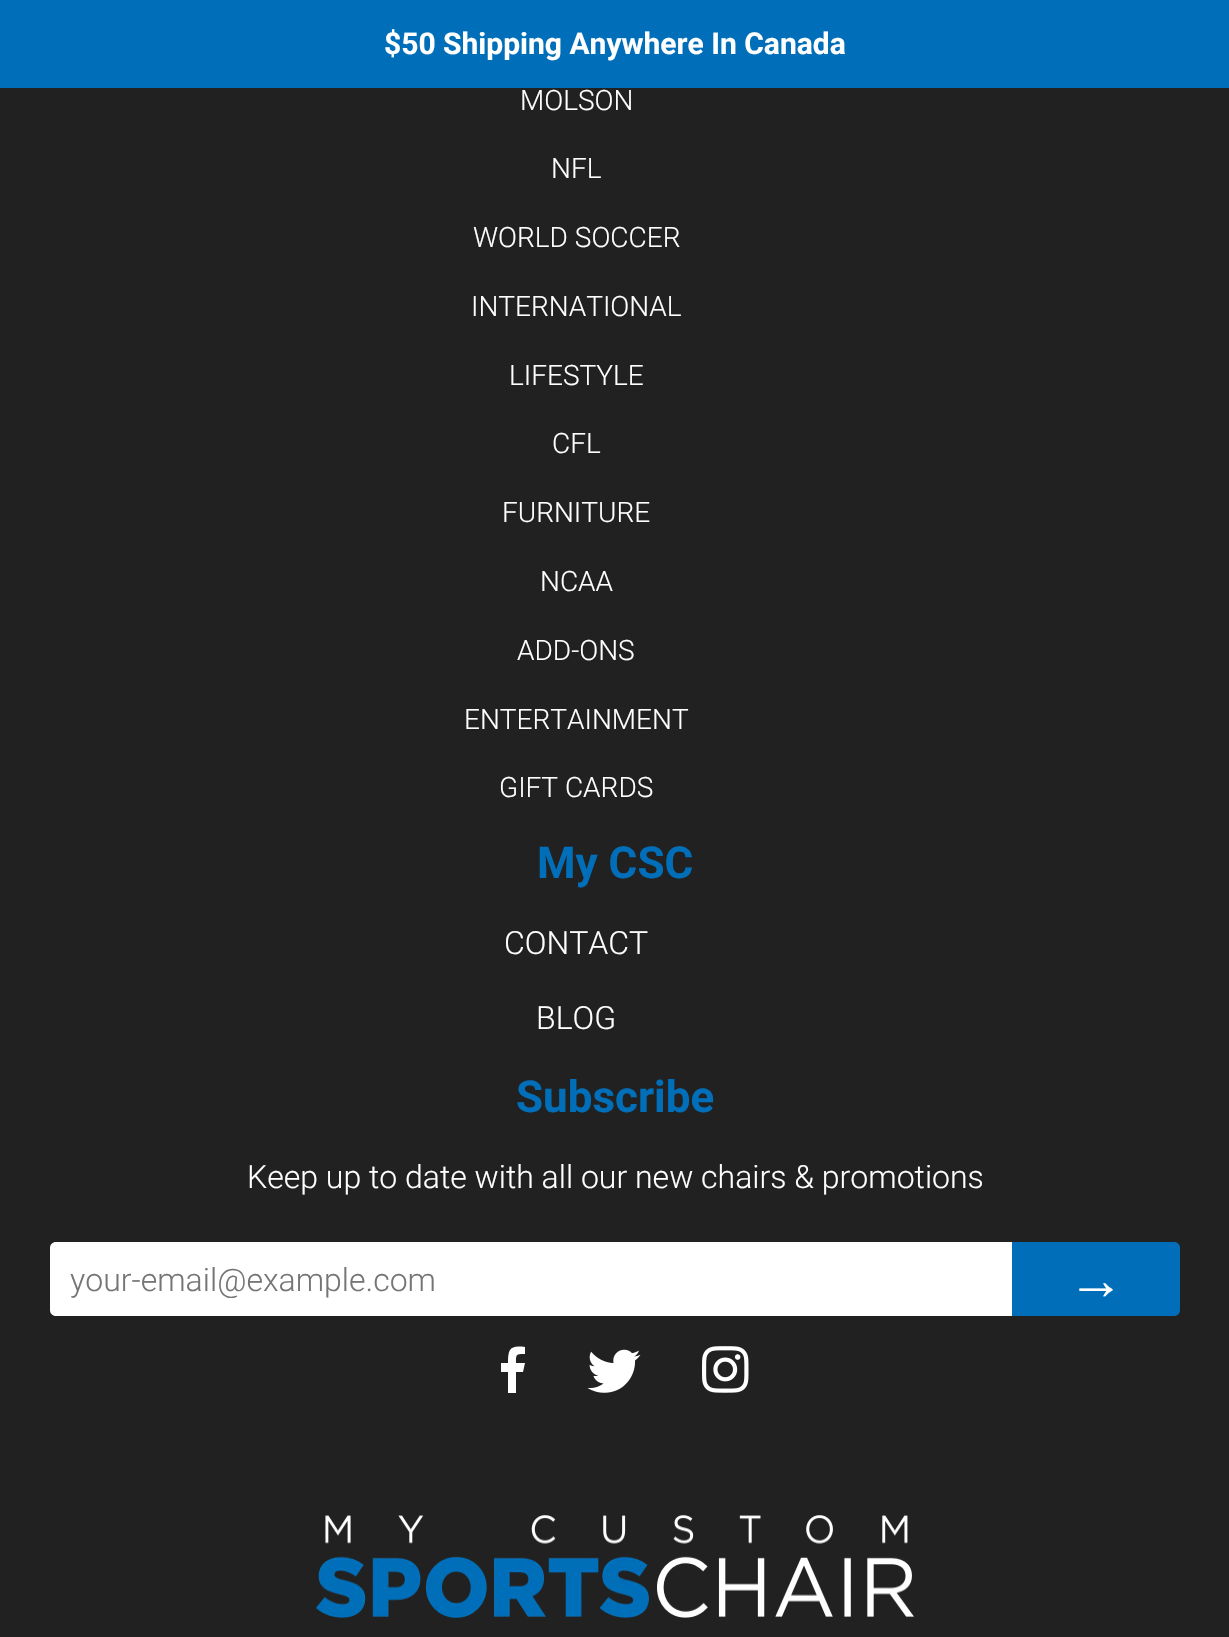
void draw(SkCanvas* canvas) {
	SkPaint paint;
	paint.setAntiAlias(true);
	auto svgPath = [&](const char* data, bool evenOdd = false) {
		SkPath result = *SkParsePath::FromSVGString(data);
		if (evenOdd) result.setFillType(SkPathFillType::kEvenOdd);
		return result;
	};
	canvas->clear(0xff212121);
	paint.setColor(0xff006eb8);
	canvas->drawRect(SkRect::MakeXYWH(0, 0, 1229, 88), paint);
	SkFont f1(fontMgr->matchFamilyStyle("Roboto", SkFontStyle::Bold()), 30);
	f1.setSubpixel(true);
	paint.setColor(0xffffffff);
	canvas->drawString("$50 Shipping Anywhere In Canada", 384, 54, f1, paint);
	SkFont f2(fontMgr->matchFamilyStyle("Roboto", SkFontStyle(300, SkFontStyle::kNormal_Width, SkFontStyle::kUpright_Slant)), 28);
	f2.setSubpixel(true);
	canvas->drawString("MOLSON", 520, 110, f2, paint);
	canvas->drawString("NFL", 551, 178, f2, paint);
	canvas->drawString("WORLD SOCCER", 473, 247, f2, paint);
	canvas->drawString("INTERNATIONAL", 471, 316, f2, paint);
	canvas->drawString("LIFESTYLE", 509, 385, f2, paint);
	canvas->drawString("CFL", 552, 453, f2, paint);
	canvas->drawString("FURNITURE", 502, 522, f2, paint);
	canvas->drawString("NCAA", 540, 591, f2, paint);
	canvas->drawString("ADD-ONS", 517, 660, f2, paint);
	canvas->drawString("ENTERTAINMENT", 464, 729, f2, paint);
	canvas->drawString("GIFT CARDS", 499, 797, f2, paint);
	SkFont f3(fontMgr->matchFamilyStyle("Roboto", SkFontStyle::Bold()), 44);
	f3.setSubpixel(true);
	paint.setColor(0xff006eb8);
	canvas->drawString("My CSC", 537, 878, f3, paint);
	SkFont f4(fontMgr->matchFamilyStyle("Roboto", SkFontStyle(300, SkFontStyle::kNormal_Width, SkFontStyle::kUpright_Slant)), 32);
	f4.setSubpixel(true);
	paint.setColor(0xffffffff);
	canvas->drawString("CONTACT", 504, 954, f4, paint);
	canvas->drawString("BLOG", 536, 1029, f4, paint);
	paint.setColor(0xff006eb8);
	canvas->drawString("Subscribe", 516, 1112, f3, paint);
	paint.setColor(0xffffffff);
	canvas->drawString("Keep up to date with all our new chairs & promotions", 247, 1188, f4, paint);
	canvas->drawPath(svgPath("M56 1242H1014V1316H56C52.5 1316 50 1313.5 50 1310V1248C50 1244.5 52.5 1242 56 1242Z"), paint);
	paint.setColor(0xff757575);
	canvas->drawString("your-email@example.com", 70, 1291, f4, paint);
	paint.setColor(0xff006eb8);
	canvas->drawPath(svgPath("M1012 1242H1174C1177.5 1242 1180 1244.5 1180 1248V1310C1180 1313.5 1177.5 1316 1174 1316H1012Z"), paint);
	SkFont f5(fontMgr->matchFamilyStyle("Liberation Sans", SkFontStyle::Bold()), 56);
	f5.setSubpixel(true);
	paint.setColor(0xffffffff);
	canvas->drawString("→", 1068, 1299, f5, paint);
	canvas->drawPath(svgPath("M525 1347V1354C516 1354 516 1354 516 1363H525L523 1372H516V1393H508V1372H501V1363H508C508 1349 510 1345 525 1347Z"), paint);
	canvas->drawImageRect(SkImages::DeferredFromEncodedData(SkData::MakeFromFileName("img1.png")), SkRect::MakeXYWH(587, 1349, 54, 44), SkSamplingOptions());
	canvas->drawImageRect(SkImages::DeferredFromEncodedData(SkData::MakeFromFileName("img2.png")), SkRect::MakeXYWH(702, 1346, 47, 47), SkSamplingOptions());
	canvas->drawImageRect(SkImages::DeferredFromEncodedData(SkData::MakeFromFileName("img3.png")), SkRect::MakeXYWH(316, 1515, 598, 103), SkSamplingOptions());
}
